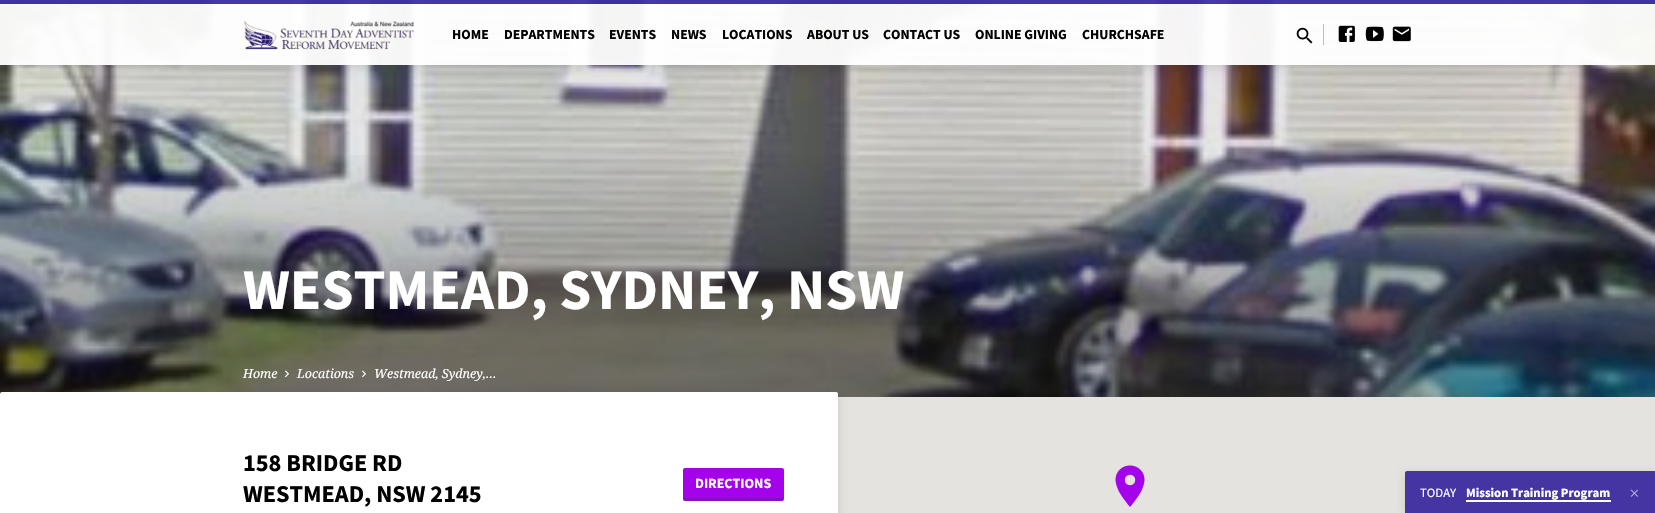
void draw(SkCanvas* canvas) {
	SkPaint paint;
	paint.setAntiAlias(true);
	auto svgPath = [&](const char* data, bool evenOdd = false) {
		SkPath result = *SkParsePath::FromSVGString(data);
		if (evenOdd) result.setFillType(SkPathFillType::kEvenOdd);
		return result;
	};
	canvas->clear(0xffffffff);
	canvas->drawImageRect(SkImages::DeferredFromEncodedData(SkData::MakeFromFileName("img6.png")), SkRect::MakeXYWH(0, 0, 1655, 397), SkSamplingOptions());
	paint.setColor(0xf24130ad);
	canvas->drawRect(SkRect::MakeXYWH(0, 0, 1655, 4), paint);
	paint.setColor(0xf2ffffff);
	canvas->drawRect(SkRect::MakeXYWH(0, 4, 1655, 61), paint);
	canvas->save();
	canvas->clipPath(svgPath("M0 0H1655V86H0ZM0 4H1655V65H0Z", true), true);
	paint.setColor(0x24000000);
	paint.setMaskFilter(SkMaskFilter::MakeBlur(kNormal_SkBlurStyle, 6));
	canvas->drawRect(SkRect::MakeXYWH(0, 6, 1655, 61), paint);
	paint.setMaskFilter(nullptr);
	canvas->restore();
	canvas->drawImageRect(SkImages::DeferredFromEncodedData(SkData::MakeFromFileName("img1.png")), SkRect::MakeXYWH(243, 20, 171, 30), SkSamplingOptions());
	SkFont f1(fontMgr->matchFamilyStyle("Source Sans Pro", SkFontStyle::Bold()), 13.75);
	f1.setSubpixel(true);
	paint.setColor(0xff000000);
	canvas->drawString("HOME", 452, 39, f1, paint);
	canvas->drawString("DEPARTMENTS", 504, 39, f1, paint);
	canvas->drawString("EVENTS", 609, 39, f1, paint);
	canvas->drawString("NEWS", 671, 39, f1, paint);
	canvas->drawString("LOCATIONS", 722, 39, f1, paint);
	canvas->drawString("ABOUT US", 807, 39, f1, paint);
	canvas->drawString("CONTACT US", 883, 39, f1, paint);
	canvas->drawString("ONLINE GIVING", 975, 39, f1, paint);
	canvas->drawString("CHURCHSAFE", 1082, 39, f1, paint);
	canvas->drawImageRect(SkImages::DeferredFromEncodedData(SkData::MakeFromFileName("img2.png")), SkRect::MakeXYWH(1296, 27, 17, 17), SkSamplingOptions());
	paint.setColor(0xffbbbbbb);
	canvas->drawRect(SkRect::MakeXYWH(1323, 24, 1, 21), paint);
	canvas->drawImageRect(SkImages::DeferredFromEncodedData(SkData::MakeFromFileName("img3.png")), SkRect::MakeXYWH(1338, 25, 17, 17), SkSamplingOptions());
	canvas->drawImageRect(SkImages::DeferredFromEncodedData(SkData::MakeFromFileName("img4.png")), SkRect::MakeXYWH(1365, 26, 19, 16), SkSamplingOptions());
	canvas->drawImageRect(SkImages::DeferredFromEncodedData(SkData::MakeFromFileName("img5.png")), SkRect::MakeXYWH(1392, 26, 19, 16), SkSamplingOptions());
	{
		const SkColor colors[] = {0x00000000, 0x00000000, 0x47000000, 0x47000000};
		const float stops[] = {0, 0.36, 0.76, 1};
		const SkPoint ends[] = {{828, 0}, {828, 397}};
		paint.setShader(SkGradientShader::MakeLinear(ends, colors, stops, 4, SkTileMode::kClamp));
		paint.setAlpha(255);
	}
	canvas->drawRect(SkRect::MakeXYWH(0, 155, 1655, 242), paint);
	SkFont f2(fontMgr->matchFamilyStyle("Source Sans Pro", SkFontStyle::Bold()), 57.6);
	f2.setSubpixel(true);
	paint.setShader(nullptr);
	paint.setColor(0xffffffff);
	canvas->drawString("WESTMEAD, SYDNEY, NSW", 243, 309, f2, paint);
	SkFont f3(fontMgr->matchFamilyStyle("Noto Serif", SkFontStyle::Italic()), 12.5);
	f3.setSubpixel(true);
	canvas->drawString("Home", 243, 378, f3, paint);
	canvas->drawImageRect(SkImages::DeferredFromEncodedData(SkData::MakeFromFileName("img7.png")), SkRect::MakeXYWH(285, 370, 4, 8), SkSamplingOptions());
	canvas->drawString("Locations", 297, 378, f3, paint);
	canvas->drawImageRect(SkImages::DeferredFromEncodedData(SkData::MakeFromFileName("img8.png")), SkRect::MakeXYWH(362, 370, 4, 8), SkSamplingOptions());
	canvas->drawString("Westmead, Sydney,…", 374, 378, f3, paint);
	paint.setColor(0xffe5e3df);
	canvas->drawRect(SkRect::MakeXYWH(838, 397, 817, 116), paint);
	paint.setColor(0x1f000000);
	paint.setMaskFilter(SkMaskFilter::MakeBlur(kNormal_SkBlurStyle, 5));
	canvas->drawRoundRect(SkRect::MakeXYWH(0, 394, 838, 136), 2, 2, paint);
	paint.setMaskFilter(nullptr);
	paint.setColor(0xffffffff);
	canvas->drawRoundRect(SkRect::MakeXYWH(0, 392, 838, 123), 2, 2, paint);
	canvas->drawImageRect(SkImages::DeferredFromEncodedData(SkData::MakeFromFileName("img9.png")), SkRect::MakeXYWH(1115, 465, 30, 42), SkSamplingOptions());
	SkFont f4(fontMgr->matchFamilyStyle("Source Sans Pro", SkFontStyle::Bold()), 24.25);
	f4.setSubpixel(true);
	paint.setColor(0xff000000);
	canvas->drawString("158 BRIDGE RD", 243, 471, f4, paint);
	canvas->drawString("WESTMEAD, NSW 2145", 243, 502, f4, paint);
	paint.setColor(0xffa402ea);
	canvas->drawRoundRect(SkRect::MakeXYWH(683, 468, 101, 33), 2, 2, paint);
	paint.setColor(0x40323232);
	canvas->drawRect(SkRect::MakeXYWH(684, 498, 99, 3), paint);
	SkFont f5(fontMgr->matchFamilyStyle("Source Sans Pro", SkFontStyle::Bold()), 14);
	f5.setSubpixel(true);
	paint.setColor(0xffffffff);
	canvas->drawString("DIRECTIONS", 695, 488, f5, paint);
	paint.setColor(0x1f000000);
	paint.setMaskFilter(SkMaskFilter::MakeBlur(kNormal_SkBlurStyle, 5));
	canvas->drawRoundRect(SkRect::MakeXYWH(1405, 473, 250, 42), 2, 2, paint);
	paint.setMaskFilter(nullptr);
	paint.setColor(0xff4939b0);
	canvas->drawPath(svgPath("M1407 471H1655V513H1405V473C1405 472 1406 471 1407 471Z"), paint);
	paint.setColor(0x12000000);
	canvas->drawRect(SkRect::MakeXYWH(1405, 471, 250, 42), paint);
	SkFont f6(fontMgr->matchFamilyStyle("Source Sans Pro", SkFontStyle::Normal()), 12.75);
	f6.setSubpixel(true);
	paint.setColor(0xffffffff);
	canvas->drawString("TODAY", 1420, 497, f6, paint);
	SkFont f7(fontMgr->matchFamilyStyle("Source Sans Pro", SkFontStyle::Bold()), 12.75);
	f7.setSubpixel(true);
	canvas->drawString("Mission Training Program", 1466, 497, f7, paint);
	canvas->drawRect(SkRect::MakeXYWH(1466, 500, 145, 2), paint);
	canvas->drawImageRect(SkImages::DeferredFromEncodedData(SkData::MakeFromFileName("img10.png")), SkRect::MakeXYWH(1630, 489, 8, 8), SkSamplingOptions());
}
